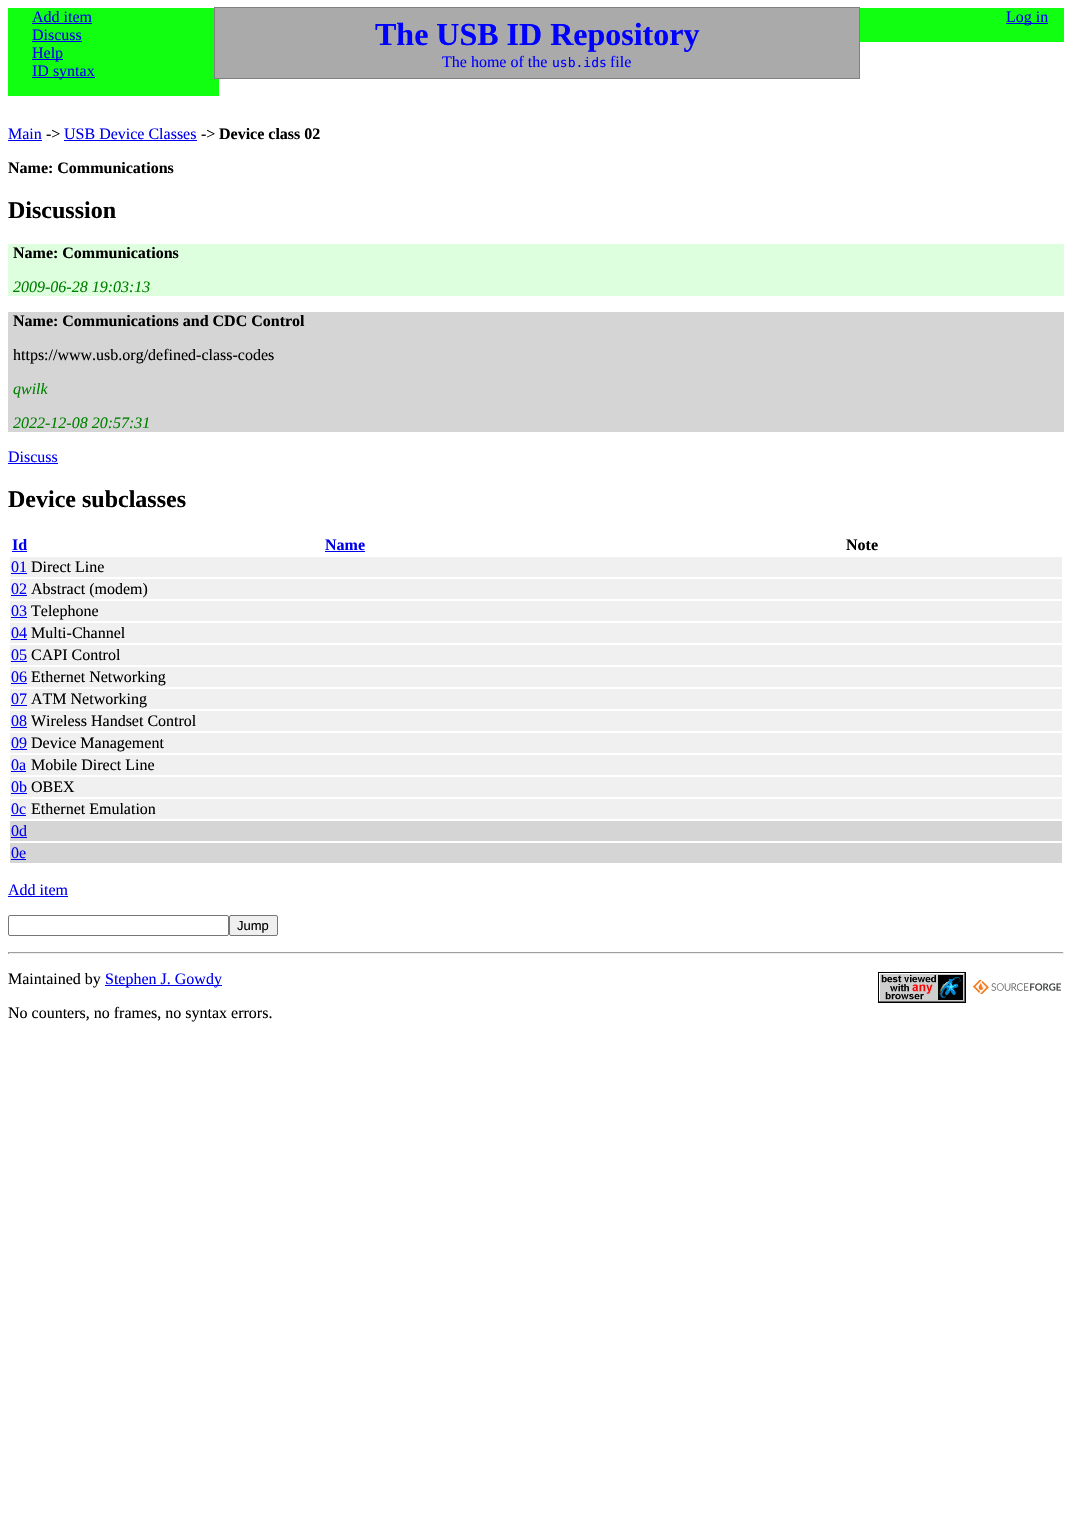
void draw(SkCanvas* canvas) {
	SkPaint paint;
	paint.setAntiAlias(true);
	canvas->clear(0xffffffff);
	paint.setColor(0xff11ff11);
	canvas->drawRect(SkRect::MakeXYWH(8, 8, 211, 88), paint);
	SkFont f1(fontMgr->matchFamilyStyle("Liberation Serif", SkFontStyle::Normal()), 16);
	f1.setSubpixel(true);
	paint.setColor(0xff0000ee);
	canvas->drawString("Add item", 32, 22, f1, paint);
	canvas->drawRect(SkRect::MakeXYWH(32, 23, 60, 1), paint);
	canvas->drawString("Discuss", 32, 40, f1, paint);
	canvas->drawRect(SkRect::MakeXYWH(32, 41, 50, 1), paint);
	canvas->drawRect(SkRect::MakeXYWH(32, 59, 31, 1), paint);
	canvas->drawString("Help", 32, 58, f1, paint);
	canvas->drawRect(SkRect::MakeXYWH(32, 77, 63, 1), paint);
	canvas->drawString("ID syntax", 32, 76, f1, paint);
	paint.setColor(0xff11ff11);
	canvas->drawRect(SkRect::MakeXYWH(860, 8, 204, 34), paint);
	paint.setColor(0xff0000ee);
	canvas->drawRect(SkRect::MakeXYWH(1006, 23, 42, 1), paint);
	canvas->drawString("Log in", 1006, 22, f1, paint);
	paint.setColor(0xffaaaaaa);
	canvas->drawRect(SkRect::MakeXYWH(214.5, 7.5, 645, 71), paint);
	paint.setStroke(true);
	paint.setStrokeWidth(1);
	paint.setColor(0xff808080);
	canvas->drawRect(SkRect::MakeXYWH(214.5, 7.5, 645, 71), paint);
	SkFont f2(fontMgr->matchFamilyStyle("Liberation Serif", SkFontStyle::Bold()), 32);
	f2.setSubpixel(true);
	paint.setStroke(false);
	paint.setColor(0xff0000ff);
	canvas->drawString("The USB ID Repository", 375, 45, f2, paint);
	canvas->drawString("The home of the", 442, 67, f1, paint);
	SkFont f3(fontMgr->matchFamilyStyle("DejaVu Sans Mono", SkFontStyle::Normal()), 13);
	f3.setSubpixel(true);
	canvas->drawString("usb.ids", 552, 67, f3, paint);
	canvas->drawString("file", 610, 67, f1, paint);
	paint.setColor(0xff0000ee);
	canvas->drawString("Main", 8, 139, f1, paint);
	canvas->drawRect(SkRect::MakeXYWH(8, 140, 34, 1), paint);
	paint.setColor(0xff000000);
	canvas->drawString("->", 46, 139, f1, paint);
	paint.setColor(0xff0000ee);
	canvas->drawString("USB Device Classes", 64, 139, f1, paint);
	canvas->drawRect(SkRect::MakeXYWH(64, 140, 133, 1), paint);
	paint.setColor(0xff000000);
	canvas->drawString("->", 201, 139, f1, paint);
	SkFont f4(fontMgr->matchFamilyStyle("Liberation Serif", SkFontStyle::Bold()), 16);
	f4.setSubpixel(true);
	canvas->drawString("Device class 02", 219, 139, f4, paint);
	canvas->drawString("Name: Communications", 8, 173, f4, paint);
	SkFont f5(fontMgr->matchFamilyStyle("Liberation Serif", SkFontStyle::Bold()), 24);
	f5.setSubpixel(true);
	canvas->drawString("Discussion", 8, 218, f5, paint);
	paint.setColor(0xffddffdd);
	canvas->drawRect(SkRect::MakeXYWH(8, 244, 1056, 52), paint);
	paint.setColor(0xff000000);
	canvas->drawString("Name: Communications", 13, 258, f4, paint);
	SkFont f6(fontMgr->matchFamilyStyle("Liberation Serif", SkFontStyle::Italic()), 16);
	f6.setSubpixel(true);
	paint.setColor(0xff008000);
	canvas->drawString("2009-06-28 19:03:13", 13, 292, f6, paint);
	paint.setColor(0xffd5d5d5);
	canvas->drawRect(SkRect::MakeXYWH(8, 312, 1056, 120), paint);
	paint.setColor(0xff000000);
	canvas->drawString("Name: Communications and CDC Control", 13, 326, f4, paint);
	canvas->drawString("https://www.usb.org/defined-class-codes", 13, 360, f1, paint);
	paint.setColor(0xff008000);
	canvas->drawString("qwilk", 13, 394, f6, paint);
	canvas->drawString("2022-12-08 20:57:31", 13, 428, f6, paint);
	paint.setColor(0xff0000ee);
	canvas->drawString("Discuss", 8, 462, f1, paint);
	canvas->drawRect(SkRect::MakeXYWH(8, 463, 50, 1), paint);
	paint.setColor(0xff000000);
	canvas->drawString("Device subclasses", 8, 507, f5, paint);
	paint.setColor(0xff0000ee);
	canvas->drawString("Id", 12, 550, f4, paint);
	canvas->drawRect(SkRect::MakeXYWH(12, 551, 15, 1), paint);
	canvas->drawString("Name", 325, 550, f4, paint);
	canvas->drawRect(SkRect::MakeXYWH(325, 551, 40, 1), paint);
	paint.setColor(0xff000000);
	canvas->drawString("Note", 846, 550, f4, paint);
	paint.setColor(0xfff0f0f0);
	canvas->drawRect(SkRect::MakeXYWH(10, 557, 1052, 20), paint);
	paint.setColor(0xff0000ee);
	canvas->drawString("01", 11, 572, f1, paint);
	canvas->drawRect(SkRect::MakeXYWH(11, 573, 16, 1), paint);
	paint.setColor(0xff000000);
	canvas->drawString("Direct Line", 31, 572, f1, paint);
	paint.setColor(0xfff0f0f0);
	canvas->drawRect(SkRect::MakeXYWH(10, 579, 1052, 20), paint);
	paint.setColor(0xff0000ee);
	canvas->drawString("02", 11, 594, f1, paint);
	canvas->drawRect(SkRect::MakeXYWH(11, 595, 16, 1), paint);
	paint.setColor(0xff000000);
	canvas->drawString("Abstract (modem)", 31, 594, f1, paint);
	paint.setColor(0xfff0f0f0);
	canvas->drawRect(SkRect::MakeXYWH(10, 601, 1052, 20), paint);
	paint.setColor(0xff0000ee);
	canvas->drawString("03", 11, 616, f1, paint);
	canvas->drawRect(SkRect::MakeXYWH(11, 617, 16, 1), paint);
	paint.setColor(0xff000000);
	canvas->drawString("Telephone", 31, 616, f1, paint);
	paint.setColor(0xfff0f0f0);
	canvas->drawRect(SkRect::MakeXYWH(10, 623, 1052, 20), paint);
	paint.setColor(0xff0000ee);
	canvas->drawString("04", 11, 638, f1, paint);
	canvas->drawRect(SkRect::MakeXYWH(11, 639, 16, 1), paint);
	paint.setColor(0xff000000);
	canvas->drawString("Multi-Channel", 31, 638, f1, paint);
	paint.setColor(0xfff0f0f0);
	canvas->drawRect(SkRect::MakeXYWH(10, 645, 1052, 20), paint);
	paint.setColor(0xff0000ee);
	canvas->drawString("05", 11, 660, f1, paint);
	canvas->drawRect(SkRect::MakeXYWH(11, 661, 16, 1), paint);
	paint.setColor(0xff000000);
	canvas->drawString("CAPI Control", 31, 660, f1, paint);
	paint.setColor(0xfff0f0f0);
	canvas->drawRect(SkRect::MakeXYWH(10, 667, 1052, 20), paint);
	paint.setColor(0xff0000ee);
	canvas->drawString("06", 11, 682, f1, paint);
	canvas->drawRect(SkRect::MakeXYWH(11, 683, 16, 1), paint);
	paint.setColor(0xff000000);
	canvas->drawString("Ethernet Networking", 31, 682, f1, paint);
	paint.setColor(0xfff0f0f0);
	canvas->drawRect(SkRect::MakeXYWH(10, 689, 1052, 20), paint);
	paint.setColor(0xff0000ee);
	canvas->drawString("07", 11, 704, f1, paint);
	canvas->drawRect(SkRect::MakeXYWH(11, 705, 16, 1), paint);
	paint.setColor(0xff000000);
	canvas->drawString("ATM Networking", 31, 704, f1, paint);
	paint.setColor(0xfff0f0f0);
	canvas->drawRect(SkRect::MakeXYWH(10, 711, 1052, 20), paint);
	paint.setColor(0xff0000ee);
	canvas->drawString("08", 11, 726, f1, paint);
	canvas->drawRect(SkRect::MakeXYWH(11, 727, 16, 1), paint);
	paint.setColor(0xff000000);
	canvas->drawString("Wireless Handset Control", 31, 726, f1, paint);
	paint.setColor(0xfff0f0f0);
	canvas->drawRect(SkRect::MakeXYWH(10, 733, 1052, 20), paint);
	paint.setColor(0xff0000ee);
	canvas->drawString("09", 11, 748, f1, paint);
	canvas->drawRect(SkRect::MakeXYWH(11, 749, 16, 1), paint);
	paint.setColor(0xff000000);
	canvas->drawString("Device Management", 31, 748, f1, paint);
	paint.setColor(0xfff0f0f0);
	canvas->drawRect(SkRect::MakeXYWH(10, 755, 1052, 20), paint);
	paint.setColor(0xff0000ee);
	canvas->drawString("0a", 11, 770, f1, paint);
	canvas->drawRect(SkRect::MakeXYWH(11, 771, 15, 1), paint);
	paint.setColor(0xff000000);
	canvas->drawString("Mobile Direct Line", 31, 770, f1, paint);
	paint.setColor(0xfff0f0f0);
	canvas->drawRect(SkRect::MakeXYWH(10, 777, 1052, 20), paint);
	paint.setColor(0xff0000ee);
	canvas->drawString("0b", 11, 792, f1, paint);
	canvas->drawRect(SkRect::MakeXYWH(11, 793, 16, 1), paint);
	paint.setColor(0xff000000);
	canvas->drawString("OBEX", 31, 792, f1, paint);
	paint.setColor(0xfff0f0f0);
	canvas->drawRect(SkRect::MakeXYWH(10, 799, 1052, 20), paint);
	paint.setColor(0xff0000ee);
	canvas->drawString("0c", 11, 814, f1, paint);
	canvas->drawRect(SkRect::MakeXYWH(11, 815, 15, 1), paint);
	paint.setColor(0xff000000);
	canvas->drawString("Ethernet Emulation", 31, 814, f1, paint);
	paint.setColor(0xffd5d5d5);
	canvas->drawRect(SkRect::MakeXYWH(10, 821, 1052, 20), paint);
	paint.setColor(0xff0000ee);
	canvas->drawString("0d", 11, 836, f1, paint);
	canvas->drawRect(SkRect::MakeXYWH(11, 837, 16, 1), paint);
	paint.setColor(0xffd5d5d5);
	canvas->drawRect(SkRect::MakeXYWH(10, 843, 1052, 20), paint);
	paint.setColor(0xff0000ee);
	canvas->drawString("0e", 11, 858, f1, paint);
	canvas->drawRect(SkRect::MakeXYWH(11, 859, 15, 1), paint);
	canvas->drawString("Add item", 8, 895, f1, paint);
	canvas->drawRect(SkRect::MakeXYWH(8, 896, 60, 1), paint);
	paint.setStroke(true);
	paint.setColor(0xff767676);
	canvas->drawRoundRect(SkRect::MakeXYWH(8.5, 915.5, 220, 20), 1.5, 1.5, paint);
	paint.setStroke(false);
	paint.setColor(0xffefefef);
	canvas->drawRoundRect(SkRect::MakeXYWH(229.5, 915.5, 48, 20), 1.5, 1.5, paint);
	paint.setStroke(true);
	paint.setColor(0xff767676);
	canvas->drawRoundRect(SkRect::MakeXYWH(229.5, 915.5, 48, 20), 1.5, 1.5, paint);
	SkFont f7(fontMgr->matchFamilyStyle("Liberation Sans", SkFontStyle::Normal()), 13);
	f7.setSubpixel(true);
	paint.setStroke(false);
	paint.setColor(0xff000000);
	canvas->drawString("Jump", 237, 930, f7, paint);
	paint.setColor(0xff9f9f9f);
	canvas->drawRect(SkRect::MakeXYWH(8, 952, 1056, 1), paint);
	paint.setColor(0xffeeeeee);
	canvas->drawRect(SkRect::MakeXYWH(1063, 952, 1, 2), paint);
	canvas->drawRect(SkRect::MakeXYWH(8, 953, 1056, 1), paint);
	paint.setColor(0xff9f9f9f);
	canvas->drawRect(SkRect::MakeXYWH(8, 952, 1, 2), paint);
	paint.setColor(0xff000000);
	canvas->drawString("Maintained by", 8, 984, f1, paint);
	paint.setColor(0xff0000ee);
	canvas->drawRect(SkRect::MakeXYWH(105, 985, 117, 1), paint);
	canvas->drawString("Stephen J. Gowdy", 105, 984, f1, paint);
	canvas->drawImageRect(SkImages::DeferredFromEncodedData(SkData::MakeFromFileName("img1.png")), SkRect::MakeXYWH(878, 972, 88, 31), SkSamplingOptions());
	canvas->drawImageRect(SkImages::DeferredFromEncodedData(SkData::MakeFromFileName("img2.png")), SkRect::MakeXYWH(973, 980, 88, 14), SkSamplingOptions());
	paint.setColor(0xff000000);
	canvas->drawString("No counters, no frames, no syntax errors.", 8, 1018, f1, paint);
}
